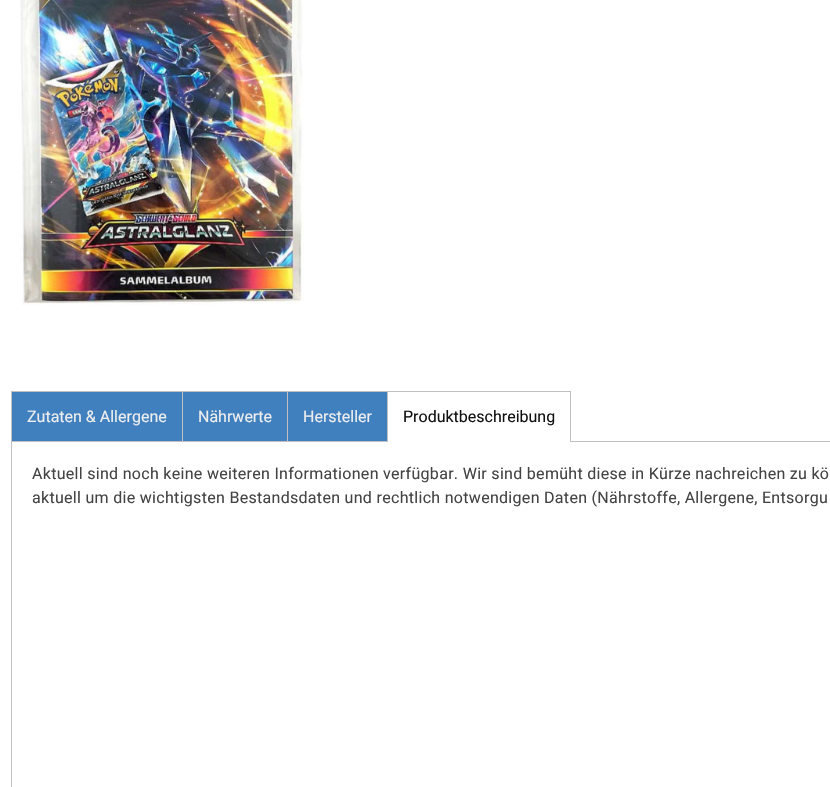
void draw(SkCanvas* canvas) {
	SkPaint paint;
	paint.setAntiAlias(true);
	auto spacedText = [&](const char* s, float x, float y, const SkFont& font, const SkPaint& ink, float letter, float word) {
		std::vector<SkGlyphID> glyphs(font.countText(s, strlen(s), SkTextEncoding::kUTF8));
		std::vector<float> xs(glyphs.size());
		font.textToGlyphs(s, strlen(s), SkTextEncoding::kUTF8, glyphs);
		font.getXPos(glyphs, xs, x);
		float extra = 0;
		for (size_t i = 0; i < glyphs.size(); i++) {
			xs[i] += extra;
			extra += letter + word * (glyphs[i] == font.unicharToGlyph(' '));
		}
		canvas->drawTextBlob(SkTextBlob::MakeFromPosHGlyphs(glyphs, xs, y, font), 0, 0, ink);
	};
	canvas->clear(0xffffffff);
	canvas->drawImageRect(SkImages::DeferredFromEncodedData(SkData::MakeFromFileName("img1.png")), SkRect::MakeXYWH(20, 0, 285, 305), SkSamplingOptions());
	paint.setColor(0xff4080bf);
	canvas->drawRect(SkRect::MakeXYWH(12, 392, 170, 49), paint);
	paint.setColor(0xffc0c0c0);
	canvas->drawRect(SkRect::MakeXYWH(11, 391, 560, 1), paint);
	canvas->drawRect(SkRect::MakeXYWH(182, 391, 1, 50), paint);
	canvas->drawRect(SkRect::MakeXYWH(11, 391, 1, 50), paint);
	SkFont f1(fontMgr->matchFamilyStyle("Roboto", SkFontStyle::Normal()), 16);
	f1.setSubpixel(true);
	paint.setColor(0xffeeeeee);
	canvas->drawString("Zutaten & Allergene", 27, 422, f1, paint);
	paint.setColor(0xff4080bf);
	canvas->drawRect(SkRect::MakeXYWH(183, 392, 104, 49), paint);
	paint.setColor(0xffc0c0c0);
	canvas->drawRect(SkRect::MakeXYWH(287, 391, 1, 50), paint);
	paint.setColor(0xffeeeeee);
	canvas->drawString("Nährwerte", 198, 422, f1, paint);
	paint.setColor(0xff4080bf);
	canvas->drawRect(SkRect::MakeXYWH(288, 392, 99, 49), paint);
	paint.setColor(0xffc0c0c0);
	canvas->drawRect(SkRect::MakeXYWH(387, 391, 1, 50), paint);
	paint.setColor(0xffeeeeee);
	canvas->drawString("Hersteller", 303, 422, f1, paint);
	paint.setColor(0xffc0c0c0);
	canvas->drawRect(SkRect::MakeXYWH(570, 391, 1, 50), paint);
	paint.setColor(0xff111111);
	canvas->drawString("Produktbeschreibung", 403, 422, f1, paint);
	paint.setStroke(true);
	paint.setStrokeWidth(1);
	paint.setColor(0xffc0c0c0);
	canvas->drawRect(SkRect::MakeXYWH(11.5, 441.5, 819, 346), paint);
	paint.setStroke(false);
	paint.setColor(0xffffffff);
	canvas->drawRect(SkRect::MakeXYWH(388, 441, 182, 1), paint);
	paint.setColor(0xff444444);
	spacedText("Aktuell sind noch keine weiteren Informationen verfügbar. Wir sind bemüht diese in Kürze nachreichen zu kö", 32, 479, f1, paint, 0.3, 0);
	spacedText("aktuell um die wichtigsten Bestandsdaten und rechtlich notwendigen Daten (Nährstoffe, Allergene, Entsorgu", 32, 503, f1, paint, 0.3, 0);
}
